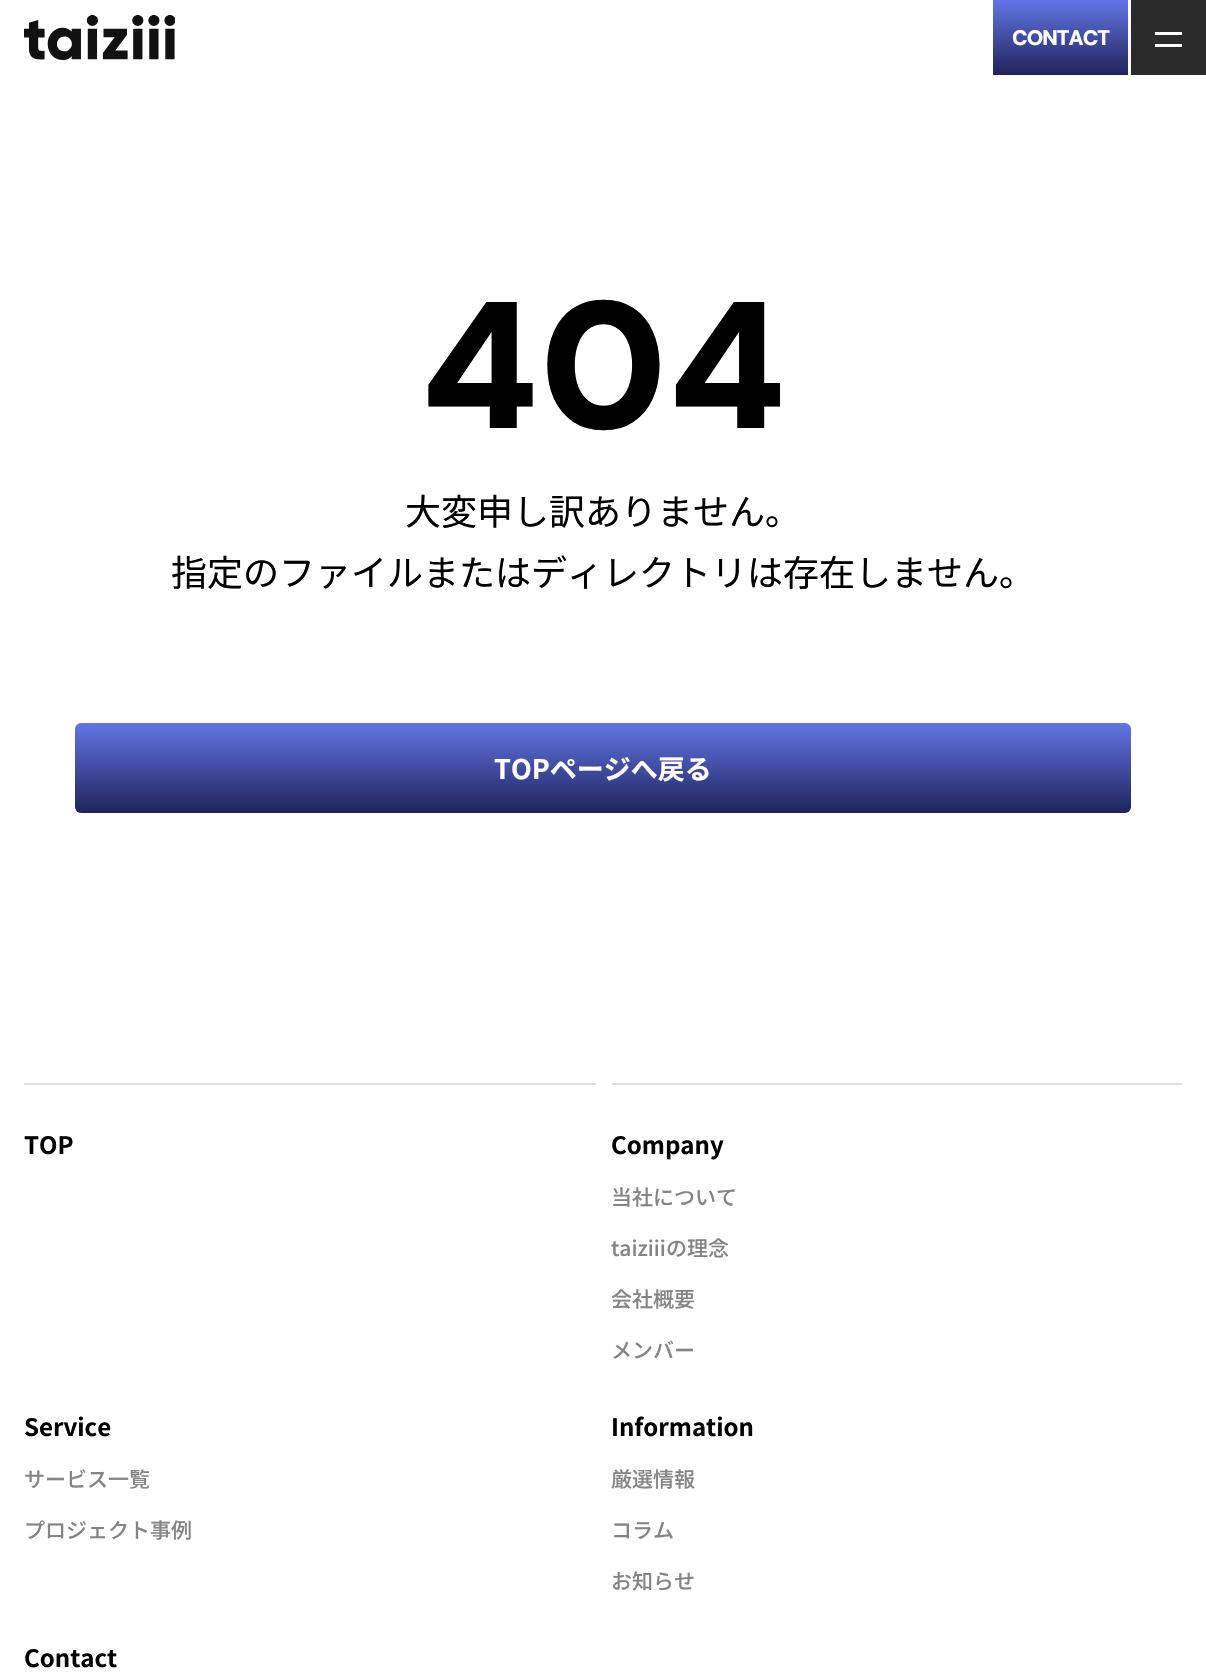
void draw(SkCanvas* canvas) {
	SkPaint paint;
	paint.setAntiAlias(true);
	auto spacedText = [&](const char* s, float x, float y, const SkFont& font, const SkPaint& ink, float letter, float word) {
		std::vector<SkGlyphID> glyphs(font.countText(s, strlen(s), SkTextEncoding::kUTF8));
		std::vector<float> xs(glyphs.size());
		font.textToGlyphs(s, strlen(s), SkTextEncoding::kUTF8, glyphs);
		font.getXPos(glyphs, xs, x);
		float extra = 0;
		for (size_t i = 0; i < glyphs.size(); i++) {
			xs[i] += extra;
			extra += letter + word * (glyphs[i] == font.unicharToGlyph(' '));
		}
		canvas->drawTextBlob(SkTextBlob::MakeFromPosHGlyphs(glyphs, xs, y, font), 0, 0, ink);
	};
	canvas->clear(0xffffffff);
	canvas->drawImageRect(SkImages::DeferredFromEncodedData(SkData::MakeFromFileName("img1.png")), SkRect::MakeXYWH(24, 15, 151, 45), SkSamplingOptions());
	{
		const SkColor colors[] = {0xff6276e5, 0xff20235c};
		const float stops[] = {0, 1};
		const SkPoint ends[] = {{1061, 0}, {1061, 75}};
		paint.setShader(SkGradientShader::MakeLinear(ends, colors, stops, 2, SkTileMode::kClamp));
		paint.setAlpha(255);
	}
	canvas->drawRect(SkRect::MakeXYWH(993, 0, 135, 75), paint);
	SkFont f1(fontMgr->matchFamilyStyle("DM Sans", SkFontStyle(900, SkFontStyle::kNormal_Width, SkFontStyle::kUpright_Slant)), 21);
	f1.setSubpixel(true);
	paint.setShader(nullptr);
	paint.setColor(0xffffffff);
	spacedText("CONTACT", 1012, 45, f1, paint, -1, 0);
	paint.setColor(0xff2b2b2b);
	canvas->drawRect(SkRect::MakeXYWH(1131, 0, 75, 75), paint);
	paint.setColor(0xffffffff);
	canvas->drawRect(SkRect::MakeXYWH(1155, 32, 27, 3), paint);
	canvas->drawRect(SkRect::MakeXYWH(1155, 44, 27, 3), paint);
	SkFont f2(fontMgr->matchFamilyStyle("DM Sans", SkFontStyle(900, SkFontStyle::kNormal_Width, SkFontStyle::kUpright_Slant)), 180);
	f2.setSubpixel(true);
	paint.setColor(0xff000000);
	canvas->drawString("404", 420, 428, f2, paint);
	SkFont f3(fontMgr->matchFamilyStyle("Noto Sans JP", SkFontStyle::Normal()), 36);
	f3.setSubpixel(true);
	canvas->drawString("大変申し訳ありません。", 405, 525, f3, paint);
	canvas->drawString("指定のファイルまたはディレクトリは存在しません。", 171, 586, f3, paint);
	{
		const SkColor colors[] = {0xff6276e5, 0xff20235c};
		const float stops[] = {0, 1};
		const SkPoint ends[] = {{603, 723}, {603, 813}};
		paint.setShader(SkGradientShader::MakeLinear(ends, colors, stops, 2, SkTileMode::kClamp));
		paint.setAlpha(255);
	}
	canvas->drawRoundRect(SkRect::MakeXYWH(75, 723, 1056, 90), 6, 6, paint);
	SkFont f4(fontMgr->matchFamilyStyle("Noto Sans JP", SkFontStyle::Bold()), 27);
	f4.setSubpixel(true);
	paint.setShader(nullptr);
	paint.setColor(0xffffffff);
	canvas->drawString("TOPページへ戻る", 494, 779, f4, paint);
	paint.setColor(0xffdedede);
	canvas->drawRect(SkRect::MakeXYWH(24, 1083, 572, 2), paint);
	SkFont f5(fontMgr->matchFamilyStyle("Noto Sans JP", SkFontStyle::Bold()), 24);
	f5.setSubpixel(true);
	paint.setColor(0xff000000);
	canvas->drawString("TOP", 24, 1154, f5, paint);
	paint.setColor(0xffdedede);
	canvas->drawRect(SkRect::MakeXYWH(612, 1083, 570, 2), paint);
	paint.setColor(0xff000000);
	canvas->drawString("Company", 611, 1154, f5, paint);
	SkFont f6(fontMgr->matchFamilyStyle("Noto Sans JP", SkFontStyle(500, SkFontStyle::kNormal_Width, SkFontStyle::kUpright_Slant)), 21);
	f6.setSubpixel(true);
	paint.setColor(0xff848484);
	canvas->drawString("当社について", 611, 1205, f6, paint);
	canvas->drawString("taiziiiの理念", 611, 1256, f6, paint);
	canvas->drawString("会社概要", 611, 1307, f6, paint);
	canvas->drawString("メンバー", 611, 1358, f6, paint);
	paint.setColor(0xff000000);
	canvas->drawString("Service", 24, 1436, f5, paint);
	paint.setColor(0xff848484);
	canvas->drawString("サービス一覧", 24, 1487, f6, paint);
	canvas->drawString("プロジェクト事例", 24, 1538, f6, paint);
	paint.setColor(0xff000000);
	canvas->drawString("Information", 611, 1436, f5, paint);
	paint.setColor(0xff848484);
	canvas->drawString("厳選情報", 611, 1487, f6, paint);
	canvas->drawString("コラム", 611, 1538, f6, paint);
	canvas->drawString("お知らせ", 611, 1589, f6, paint);
	paint.setColor(0xff000000);
	canvas->drawString("Contact", 24, 1667, f5, paint);
}
